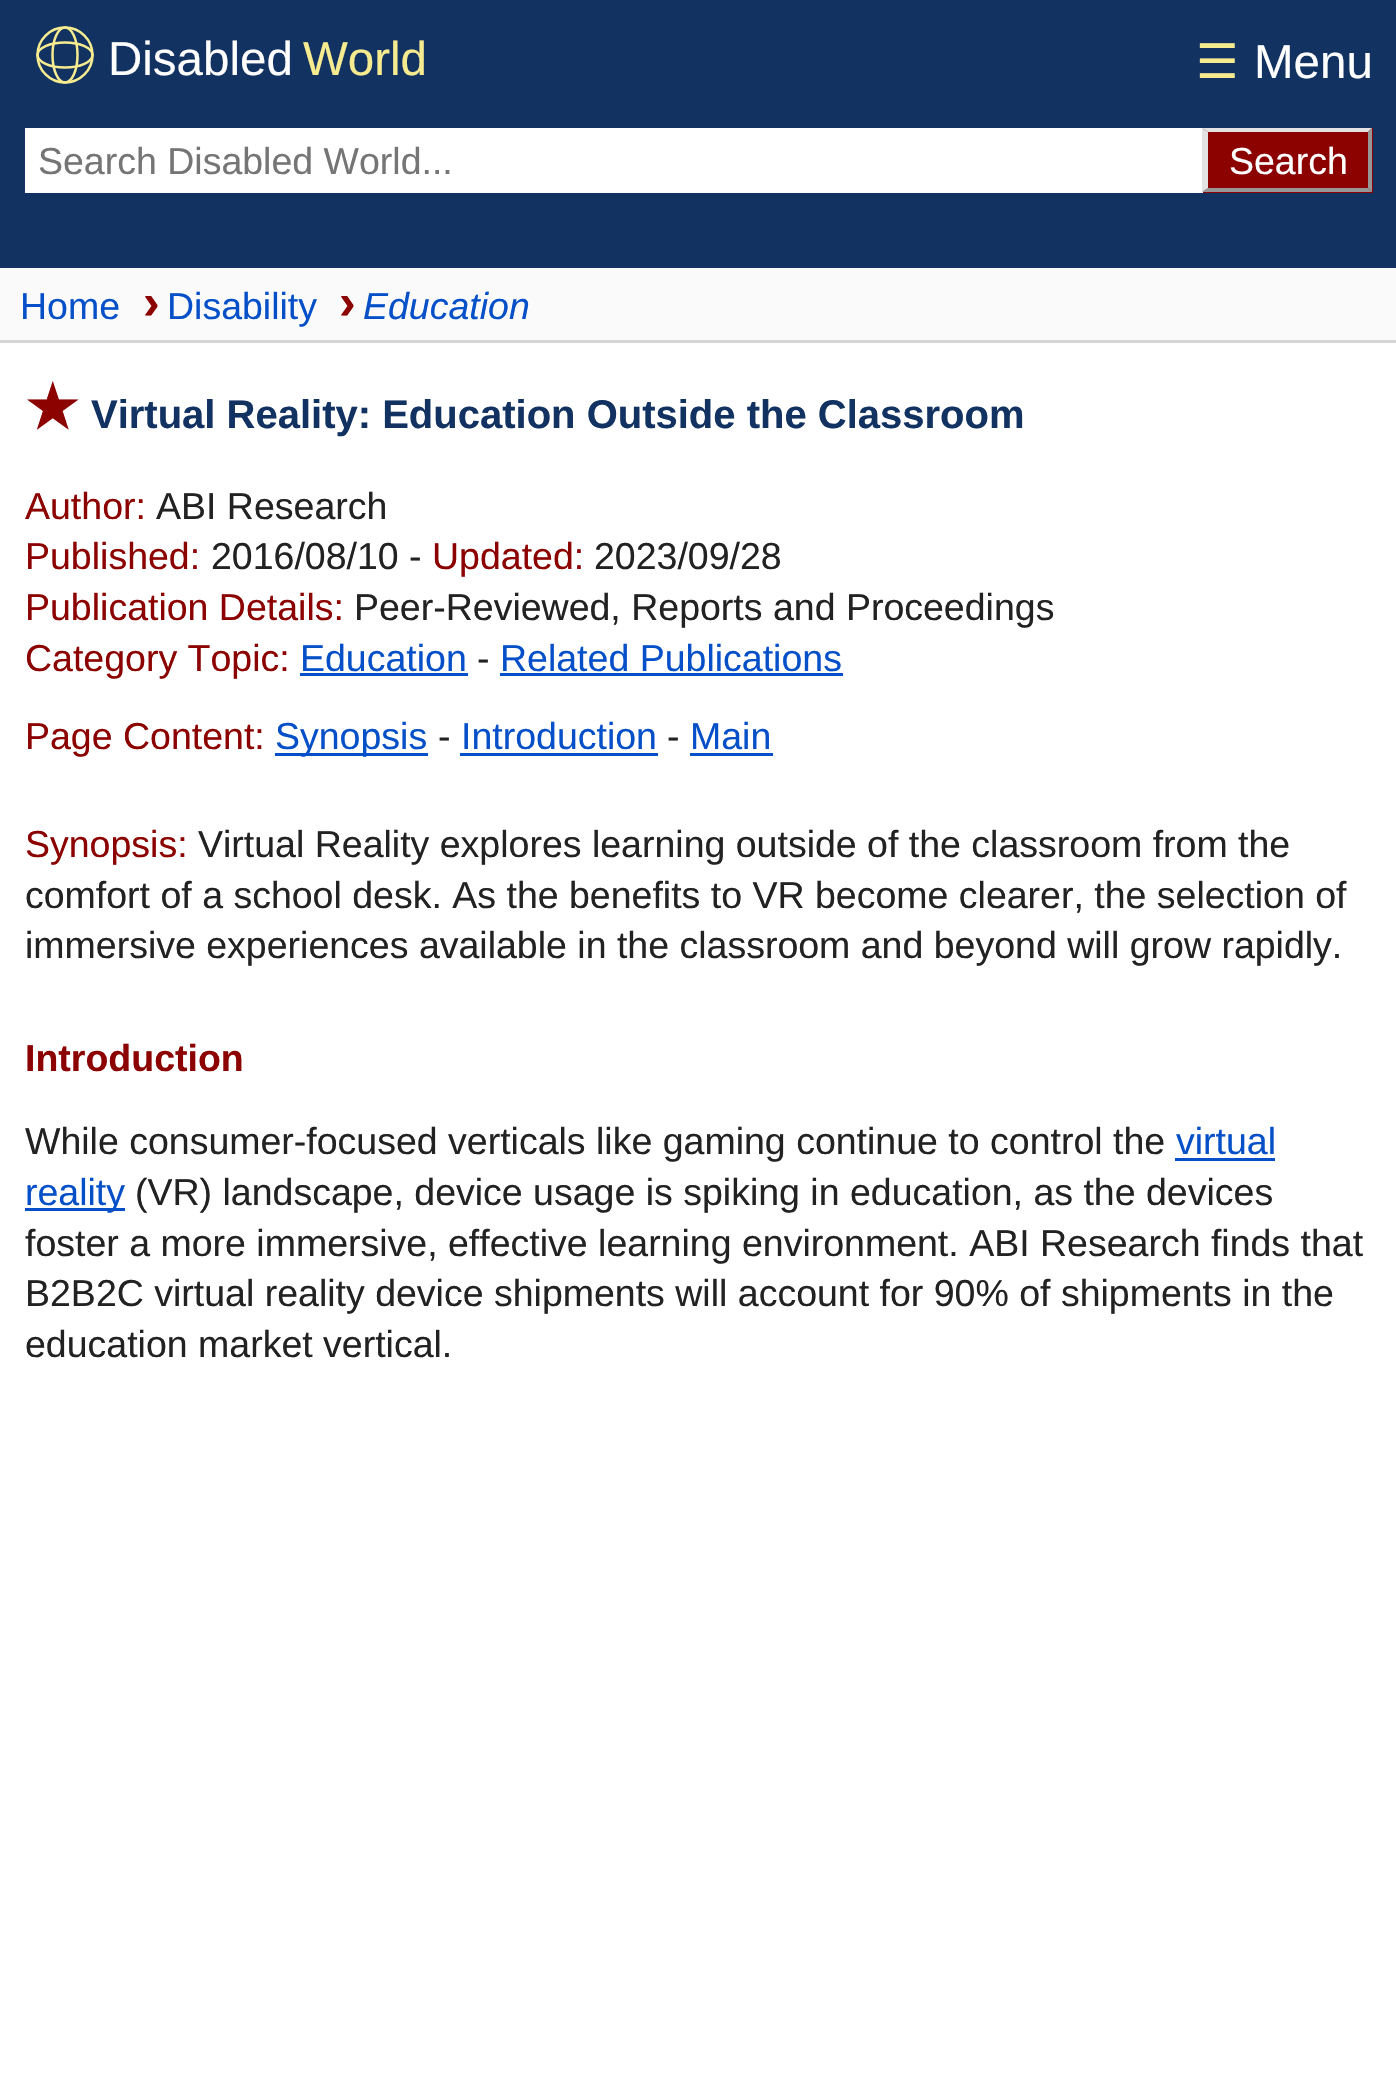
void draw(SkCanvas* canvas) {
	SkPaint paint;
	paint.setAntiAlias(true);
	auto svgPath = [&](const char* data, bool evenOdd = false) {
		SkPath result = *SkParsePath::FromSVGString(data);
		if (evenOdd) result.setFillType(SkPathFillType::kEvenOdd);
		return result;
	};
	canvas->clear(0xffffffff);
	paint.setColor(0xff123262);
	canvas->drawRect(SkRect::MakeXYWH(0, 0, 1396, 268), paint);
	SkFont f1(fontMgr->matchFamilyStyle("Liberation Sans", SkFontStyle::Normal()), 47.5);
	f1.setSubpixel(true);
	paint.setColor(0xffffffff);
	canvas->drawString("Disabled", 108, 75, f1, paint);
	paint.setStroke(true);
	paint.setStrokeWidth(2.5);
	paint.setColor(0xfff7eb90);
	canvas->drawCircle(65, 55, 27.5, paint);
	canvas->drawOval(SkRect::MakeXYWH(52.5, 27.5, 25, 55), paint);
	canvas->drawOval(SkRect::MakeXYWH(37.5, 42.5, 55, 25), paint);
	paint.setStroke(false);
	canvas->drawString("World", 303, 75, f1, paint);
	SkFont f2(fontMgr->matchFamilyStyle("DejaVu Sans", SkFontStyle::Normal()), 47.5);
	f2.setSubpixel(true);
	canvas->drawString("☰", 1196, 78, f2, paint);
	paint.setColor(0xffffffff);
	canvas->drawString("Menu", 1254, 78, f1, paint);
	canvas->drawRect(SkRect::MakeXYWH(25, 128, 1178, 65), paint);
	SkFont f3(fontMgr->matchFamilyStyle("Liberation Sans", SkFontStyle::Normal()), 37.5);
	f3.setSubpixel(true);
	paint.setColor(0xff757575);
	canvas->drawString("Search Disabled World...", 38, 174, f3, paint);
	paint.setColor(0xff8b0201);
	canvas->drawRect(SkRect::MakeXYWH(1203, 128, 170, 65), paint);
	paint.setColor(0xffe3e3e3);
	canvas->drawPath(svgPath("M1202 128H1372L1368 132H1208Z"), paint);
	paint.setColor(0xff979797);
	canvas->drawPath(svgPath("M1372 128V192L1368 188V132Z"), paint);
	canvas->drawPath(svgPath("M1372 192H1202L1208 188H1368Z"), paint);
	paint.setColor(0xffe3e3e3);
	canvas->drawPath(svgPath("M1202 192V128L1208 132V188Z"), paint);
	paint.setColor(0xffffffff);
	canvas->drawString("Search", 1229, 174, f3, paint);
	paint.setColor(0xfffafafa);
	canvas->drawRect(SkRect::MakeXYWH(0, 268, 1396, 72), paint);
	paint.setColor(0xffd5d5d5);
	canvas->drawRect(SkRect::MakeXYWH(0, 340, 1396, 3), paint);
	paint.setColor(0xff0550c8);
	canvas->drawString("Home", 20, 319, f3, paint);
	SkFont f4(fontMgr->matchFamilyStyle("Liberation Sans", SkFontStyle::Bold()), 50);
	f4.setSubpixel(true);
	paint.setColor(0xff8b0201);
	canvas->drawString("›", 143, 319, f4, paint);
	paint.setColor(0xff0550c8);
	canvas->drawString("Disability", 167, 319, f3, paint);
	paint.setColor(0xff8b0201);
	canvas->drawString("›", 339, 319, f4, paint);
	SkFont f5(fontMgr->matchFamilyStyle("Liberation Sans", SkFontStyle::Italic()), 37.5);
	f5.setSubpixel(true);
	paint.setColor(0xff0550c8);
	canvas->drawString("Education", 363, 319, f5, paint);
	SkFont f6(fontMgr->matchFamilyStyle("DejaVu Sans", SkFontStyle::Bold()), 60);
	f6.setSubpixel(true);
	paint.setColor(0xff8b0201);
	canvas->drawString("★", 25, 428, f6, paint);
	SkFont f7(fontMgr->matchFamilyStyle("Liberation Sans", SkFontStyle::Bold()), 40);
	f7.setSubpixel(true);
	paint.setColor(0xff123262);
	canvas->drawString("Virtual Reality: Education Outside the Classroom", 91, 428, f7, paint);
	paint.setColor(0xff8b0201);
	canvas->drawString("Author:", 25, 519, f3, paint);
	paint.setColor(0xff222222);
	canvas->drawString("ABI Research", 156, 519, f3, paint);
	paint.setColor(0xff8b0201);
	canvas->drawString("Published:", 25, 569, f3, paint);
	paint.setColor(0xff222222);
	canvas->drawString("2016/08/10 -", 211, 569, f3, paint);
	paint.setColor(0xff8b0201);
	canvas->drawString("Updated:", 432, 569, f3, paint);
	paint.setColor(0xff222222);
	canvas->drawString("2023/09/28", 594, 569, f3, paint);
	paint.setColor(0xff8b0201);
	canvas->drawString("Publication Details:", 25, 620, f3, paint);
	paint.setColor(0xff222222);
	canvas->drawString("Peer-Reviewed, Reports and Proceedings", 354, 620, f3, paint);
	paint.setColor(0xff8b0201);
	canvas->drawString("Category Topic:", 25, 671, f3, paint);
	paint.setColor(0xff0550c8);
	canvas->drawString("Education", 300, 671, f3, paint);
	canvas->drawRect(SkRect::MakeXYWH(300, 673, 168, 3), paint);
	paint.setColor(0xff222222);
	canvas->drawString("-", 477, 671, f3, paint);
	paint.setColor(0xff0550c8);
	canvas->drawString("Related Publications", 500, 671, f3, paint);
	canvas->drawRect(SkRect::MakeXYWH(500, 673, 343, 3), paint);
	paint.setColor(0xff8b0201);
	canvas->drawString("Page Content:", 25, 749, f3, paint);
	paint.setColor(0xff0550c8);
	canvas->drawRect(SkRect::MakeXYWH(275, 753, 153, 3), paint);
	canvas->drawString("Synopsis", 275, 749, f3, paint);
	paint.setColor(0xff222222);
	canvas->drawString("-", 438, 749, f3, paint);
	paint.setColor(0xff0550c8);
	canvas->drawString("Introduction", 461, 749, f3, paint);
	canvas->drawRect(SkRect::MakeXYWH(460, 753, 198, 3), paint);
	paint.setColor(0xff222222);
	canvas->drawString("-", 667, 749, f3, paint);
	paint.setColor(0xff0550c8);
	canvas->drawString("Main", 690, 749, f3, paint);
	canvas->drawRect(SkRect::MakeXYWH(690, 753, 83, 3), paint);
	paint.setColor(0xff8b0201);
	canvas->drawString("Synopsis:", 25, 857, f3, paint);
	paint.setColor(0xff222222);
	canvas->drawString("Virtual Reality explores learning outside of the classroom from the", 198, 857, f3, paint);
	canvas->drawString("comfort of a school desk. As the benefits to VR become clearer, the selection of", 25, 908, f3, paint);
	canvas->drawString("immersive experiences available in the classroom and beyond will grow rapidly.", 25, 958, f3, paint);
	SkFont f8(fontMgr->matchFamilyStyle("Liberation Sans", SkFontStyle::Bold()), 37.5);
	f8.setSubpixel(true);
	paint.setColor(0xff8b0201);
	canvas->drawString("Introduction", 25, 1071, f8, paint);
	paint.setColor(0xff222222);
	canvas->drawString("While consumer-focused verticals like gaming continue to control the", 25, 1154, f3, paint);
	paint.setColor(0xff0550c8);
	canvas->drawString("virtual", 1176, 1154, f3, paint);
	canvas->drawRect(SkRect::MakeXYWH(1175, 1158, 100, 3), paint);
	canvas->drawRect(SkRect::MakeXYWH(25, 1208, 100, 3), paint);
	canvas->drawString("reality", 25, 1205, f3, paint);
	paint.setColor(0xff222222);
	canvas->drawString("(VR) landscape, device usage is spiking in education, as the devices", 135, 1205, f3, paint);
	canvas->drawString("foster a more immersive, effective learning environment. ABI Research finds that", 25, 1256, f3, paint);
	canvas->drawString("B2B2C virtual reality device shipments will account for 90% of shipments in the", 25, 1306, f3, paint);
	canvas->drawString("education market vertical.", 25, 1357, f3, paint);
}
